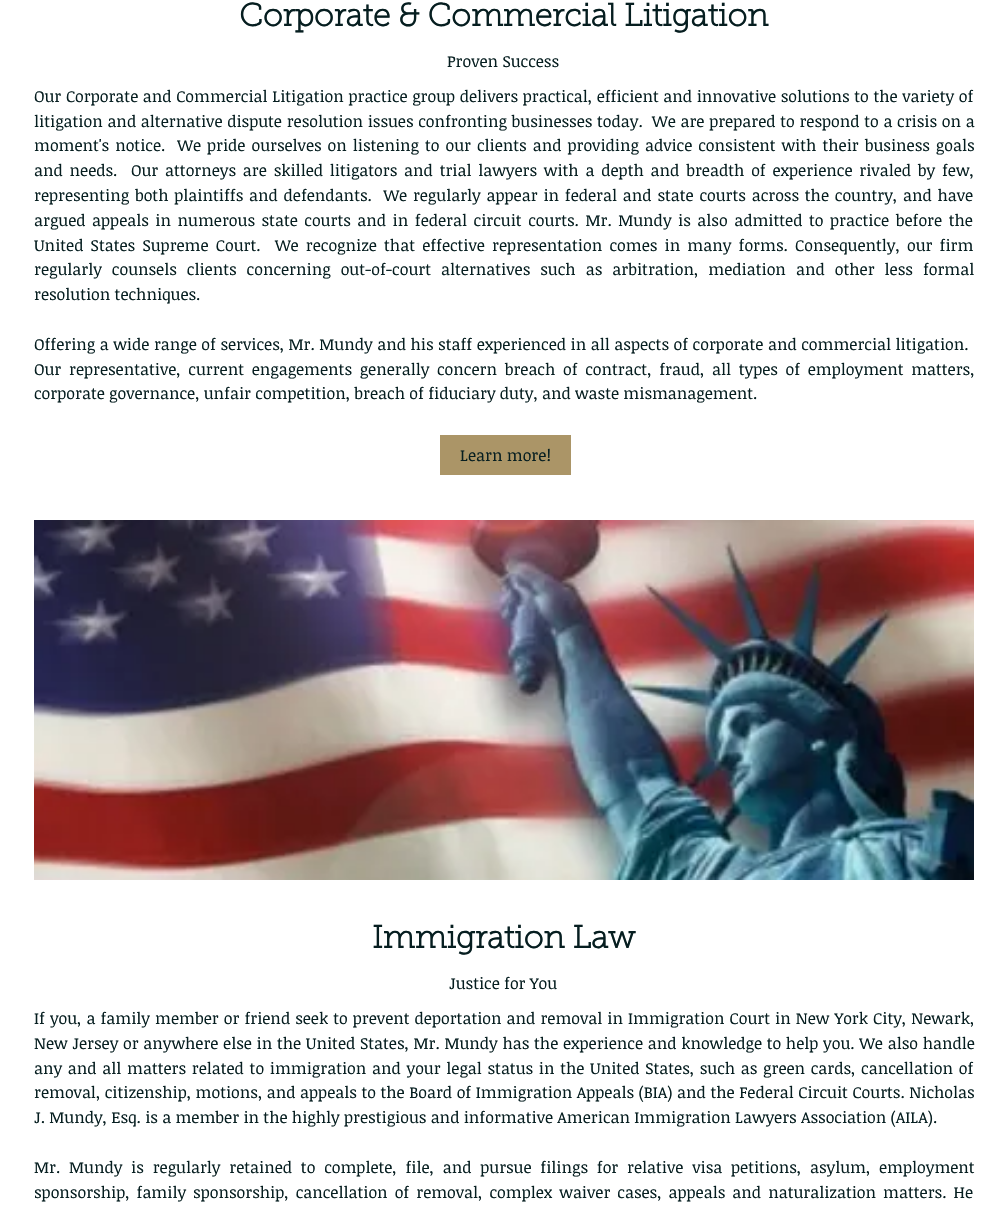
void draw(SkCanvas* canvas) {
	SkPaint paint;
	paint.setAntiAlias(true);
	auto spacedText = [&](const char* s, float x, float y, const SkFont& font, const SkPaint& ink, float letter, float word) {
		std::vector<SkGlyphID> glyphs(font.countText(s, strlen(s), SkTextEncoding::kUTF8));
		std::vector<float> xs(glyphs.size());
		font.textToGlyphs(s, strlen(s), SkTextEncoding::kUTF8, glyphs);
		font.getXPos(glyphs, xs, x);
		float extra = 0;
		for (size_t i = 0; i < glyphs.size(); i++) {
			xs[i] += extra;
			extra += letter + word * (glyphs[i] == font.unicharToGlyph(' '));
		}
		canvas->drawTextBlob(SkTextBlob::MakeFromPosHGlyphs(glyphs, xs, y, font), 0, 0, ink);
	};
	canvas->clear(0xffffffff);
	SkFont f1(fontMgr->matchFamilyStyle("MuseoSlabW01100", SkFontStyle::Bold()), 32);
	f1.setSubpixel(true);
	paint.setColor(0xff061e20);
	canvas->drawString("Corporate & Commercial Litigation", 239, 26, f1, paint);
	SkFont f2(fontMgr->matchFamilyStyle("Noticia Text", SkFontStyle::Normal()), 16);
	f2.setSubpixel(true);
	canvas->drawString("Proven Success", 447, 67, f2, paint);
	spacedText("Our Corporate and Commercial Litigation practice group delivers practical, efficient and innovative solutions to the variety of", 34, 102, f2, paint, 0, 0.3);
	spacedText("litigation and alternative dispute resolution issues confronting businesses today.  We are prepared to respond to a crisis on a", 34, 127, f2, paint, 0, 0.4);
	spacedText("moment's notice.  We pride ourselves on listening to our clients and providing advice consistent with their business goals", 34, 151, f2, paint, 0, 1.7);
	spacedText("and needs.  Our attorneys are skilled litigators and trial lawyers with a depth and breadth of experience rivaled by few,", 34, 176, f2, paint, 0, 2.5);
	spacedText("representing both plaintiffs and defendants.  We regularly appear in federal and state courts across the country, and have", 34, 201, f2, paint, 0, 1.5);
	spacedText("argued appeals in numerous state courts and in federal circuit courts. Mr. Mundy is also admitted to practice before the", 34, 226, f2, paint, 0, 2.25);
	spacedText("United States Supreme Court.  We recognize that effective representation comes in many forms. Consequently, our firm", 34, 251, f2, paint, 0, 2.9);
	spacedText("regularly counsels clients concerning out-of-court alternatives such as arbitration, mediation and other less formal", 34, 275, f2, paint, 0, 5.75);
	canvas->drawString("resolution techniques.", 34, 300, f2, paint);
	spacedText("Offering a wide range of services, Mr. Mundy and his staff experienced in all aspects of corporate and commercial litigation.", 34, 350, f2, paint, 0, 0.25);
	spacedText("Our representative, current engagements generally concern breach of contract, fraud, all types of employment matters,", 34, 375, f2, paint, 0, 3.4);
	canvas->drawString("corporate governance, unfair competition, breach of fiduciary duty, and waste mismanagement.", 34, 399, f2, paint);
	paint.setColor(0xffab9567);
	canvas->drawRect(SkRect::MakeXYWH(440, 435, 131, 40), paint);
	paint.setColor(0xff061e20);
	canvas->drawString("Learn more!", 460, 461, f2, paint);
	canvas->drawImageRect(SkImages::DeferredFromEncodedData(SkData::MakeFromFileName("img1.png")), SkRect::MakeXYWH(34, 520, 940, 360), SkSamplingOptions());
	canvas->drawString("Immigration Law", 372, 948, f1, paint);
	canvas->drawString("Justice for You", 449, 989, f2, paint);
	spacedText("If you, a family member or friend seek to prevent deportation and removal in Immigration Court in New York City, Newark,", 34, 1024, f2, paint, 0, 0.75);
	spacedText("New Jersey or anywhere else in the United States, Mr. Mundy has the experience and knowledge to help you. We also handle", 34, 1049, f2, paint, 0, 0.4);
	spacedText("any and all matters related to immigration and your legal status in the United States, such as green cards, cancellation of", 34, 1074, f2, paint, 0, 1.4);
	spacedText("removal, citizenship, motions, and appeals to the Board of Immigration Appeals (BIA) and the Federal Circuit Courts. Nicholas", 34, 1098, f2, paint, 0, 0.25);
	canvas->drawString("J. Mundy, Esq. is a member in the highly prestigious and informative American Immigration Lawyers Association (AILA).", 34, 1123, f2, paint);
	spacedText("Mr. Mundy is regularly retained to complete, file, and pursue filings for relative visa petitions, asylum, employment", 34, 1173, f2, paint, 0, 4.5);
	spacedText("sponsorship, family sponsorship, cancellation of removal, complex waiver cases, appeals and naturalization matters. He", 34, 1198, f2, paint, 0, 2.75);
}
